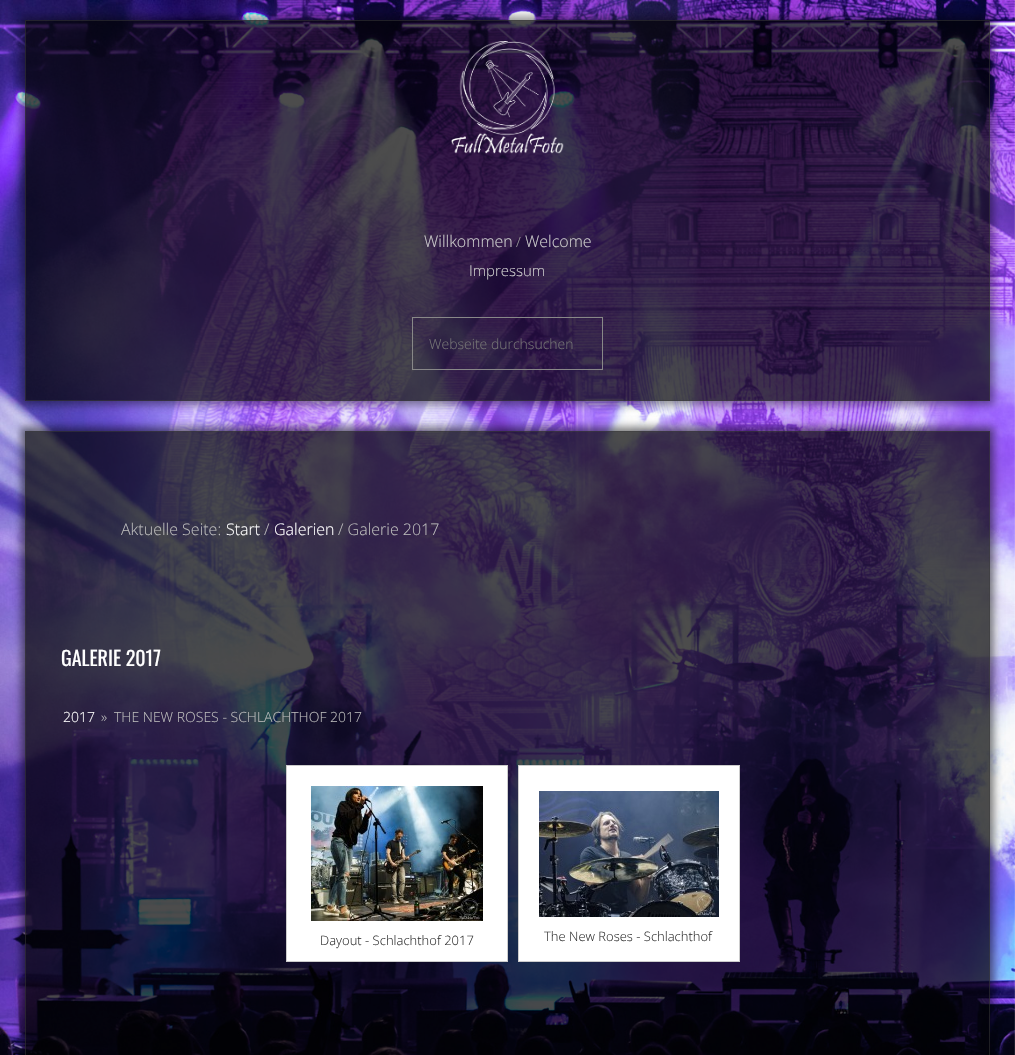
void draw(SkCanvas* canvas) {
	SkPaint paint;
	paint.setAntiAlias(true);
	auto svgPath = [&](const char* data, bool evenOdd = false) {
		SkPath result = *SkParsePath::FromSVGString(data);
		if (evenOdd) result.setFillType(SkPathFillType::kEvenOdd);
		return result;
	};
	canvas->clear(0xffffffff);
	canvas->drawImageRect(SkImages::DeferredFromEncodedData(SkData::MakeFromFileName("img1.png")), SkRect::MakeXYWH(0, 0, 1015, 1055), SkSamplingOptions());
	canvas->save();
	canvas->clipPath(svgPath("M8 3H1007V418H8ZM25 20H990V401H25Z", true), true);
	paint.setColor(0x66000000);
	paint.setMaskFilter(SkMaskFilter::MakeBlur(kNormal_SkBlurStyle, 4));
	canvas->drawRect(SkRect::MakeXYWH(21, 16, 973, 389), paint);
	paint.setMaskFilter(nullptr);
	canvas->restore();
	paint.setColor(0xb3000000);
	canvas->drawRect(SkRect::MakeXYWH(25, 20, 965, 381), paint);
	paint.setStroke(true);
	paint.setStrokeWidth(1);
	paint.setColor(0x803c3c3c);
	canvas->drawRect(SkRect::MakeXYWH(25.5, 20.5, 964, 380), paint);
	canvas->drawImageRect(SkImages::DeferredFromEncodedData(SkData::MakeFromFileName("img2.png")), SkRect::MakeXYWH(451, 41, 113, 113), SkSamplingOptions());
	SkFont f1(fontMgr->matchFamilyStyle("Open Sans", SkFontStyle(300, SkFontStyle::kNormal_Width, SkFontStyle::kUpright_Slant)), 16);
	f1.setSubpixel(true);
	paint.setStroke(false);
	paint.setColor(0xffcccccc);
	canvas->drawString("Willkommen", 424, 247, f1, paint);
	SkFont f2(fontMgr->matchFamilyStyle("Open Sans", SkFontStyle(300, SkFontStyle::kNormal_Width, SkFontStyle::kUpright_Slant)), 14);
	f2.setSubpixel(true);
	paint.setColor(0xff999999);
	canvas->drawString("/", 516, 247, f2, paint);
	paint.setColor(0xffcccccc);
	canvas->drawString("Welcome", 525, 247, f1, paint);
	SkFont f3(fontMgr->matchFamilyStyle("Open Sans", SkFontStyle(300, SkFontStyle::kNormal_Width, SkFontStyle::kUpright_Slant)), 15);
	f3.setSubpixel(true);
	canvas->drawString("Impressum", 469, 276, f3, paint);
	paint.setStroke(true);
	paint.setColor(0xff888888);
	canvas->drawRect(SkRect::MakeXYWH(412.5, 317.5, 190, 52), paint);
	paint.setStroke(false);
	paint.setColor(0xff757575);
	canvas->drawString("Webseite durchsuchen", 429, 349, f2, paint);
	canvas->save();
	canvas->clipPath(svgPath("M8 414H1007V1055H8ZM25 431H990V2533H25Z", true), true);
	paint.setColor(0x80000000);
	paint.setMaskFilter(SkMaskFilter::MakeBlur(kNormal_SkBlurStyle, 4));
	canvas->drawRect(SkRect::MakeXYWH(21, 427, 973, 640), paint);
	paint.setMaskFilter(nullptr);
	canvas->restore();
	paint.setColor(0xb3000000);
	canvas->drawRect(SkRect::MakeXYWH(25, 431, 965, 624), paint);
	paint.setStroke(true);
	paint.setColor(0x803c3c3c);
	canvas->drawRect(SkRect::MakeXYWH(25.5, 431.5, 964, 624), paint);
	paint.setStroke(false);
	paint.setColor(0xffbbbbbb);
	canvas->drawString("Aktuelle Seite:", 121, 535, f1, paint);
	paint.setColor(0xffffffff);
	canvas->drawString("Start", 226, 535, f1, paint);
	paint.setColor(0xffbbbbbb);
	canvas->drawString("/", 264, 535, f1, paint);
	paint.setColor(0xffffffff);
	canvas->drawString("Galerien", 274, 535, f1, paint);
	paint.setColor(0xffbbbbbb);
	canvas->drawString("/ Galerie 2017", 338, 535, f1, paint);
	SkFont f4(fontMgr->matchFamilyStyle("Oswald", SkFontStyle::Normal()), 20);
	f4.setSubpixel(true);
	paint.setColor(0xffffffff);
	canvas->drawString("GALERIE 2017", 61, 666, f4, paint);
	canvas->drawString("2017", 63, 722, f2, paint);
	paint.setColor(0xffbbbbbb);
	canvas->drawString("»", 101, 722, f2, paint);
	canvas->drawString("THE NEW ROSES - SCHLACHTHOF 2017", 114, 722, f2, paint);
	paint.setColor(0xffffffff);
	canvas->drawRect(SkRect::MakeXYWH(286.5, 765.5, 221, 196), paint);
	paint.setStroke(true);
	paint.setColor(0xffcccccc);
	canvas->drawRect(SkRect::MakeXYWH(286.5, 765.5, 221, 196), paint);
	canvas->drawImageRect(SkImages::DeferredFromEncodedData(SkData::MakeFromFileName("img3.png")), SkRect::MakeXYWH(311, 786, 172, 135), SkSamplingOptions());
	SkFont f5(fontMgr->matchFamilyStyle("Open Sans", SkFontStyle(300, SkFontStyle::kNormal_Width, SkFontStyle::kUpright_Slant)), 13);
	f5.setSubpixel(true);
	paint.setStroke(false);
	paint.setColor(0xff333333);
	canvas->drawString("Dayout - Schlachthof 2017", 320, 945, f5, paint);
	paint.setColor(0xffffffff);
	canvas->drawRect(SkRect::MakeXYWH(518.5, 765.5, 221, 196), paint);
	paint.setStroke(true);
	paint.setColor(0xffcccccc);
	canvas->drawRect(SkRect::MakeXYWH(518.5, 765.5, 221, 196), paint);
	canvas->drawImageRect(SkImages::DeferredFromEncodedData(SkData::MakeFromFileName("img4.png")), SkRect::MakeXYWH(539, 791, 180, 126), SkSamplingOptions());
	paint.setStroke(false);
	paint.setColor(0xff333333);
	canvas->drawString("The New Roses - Schlachthof", 544, 941, f5, paint);
}
